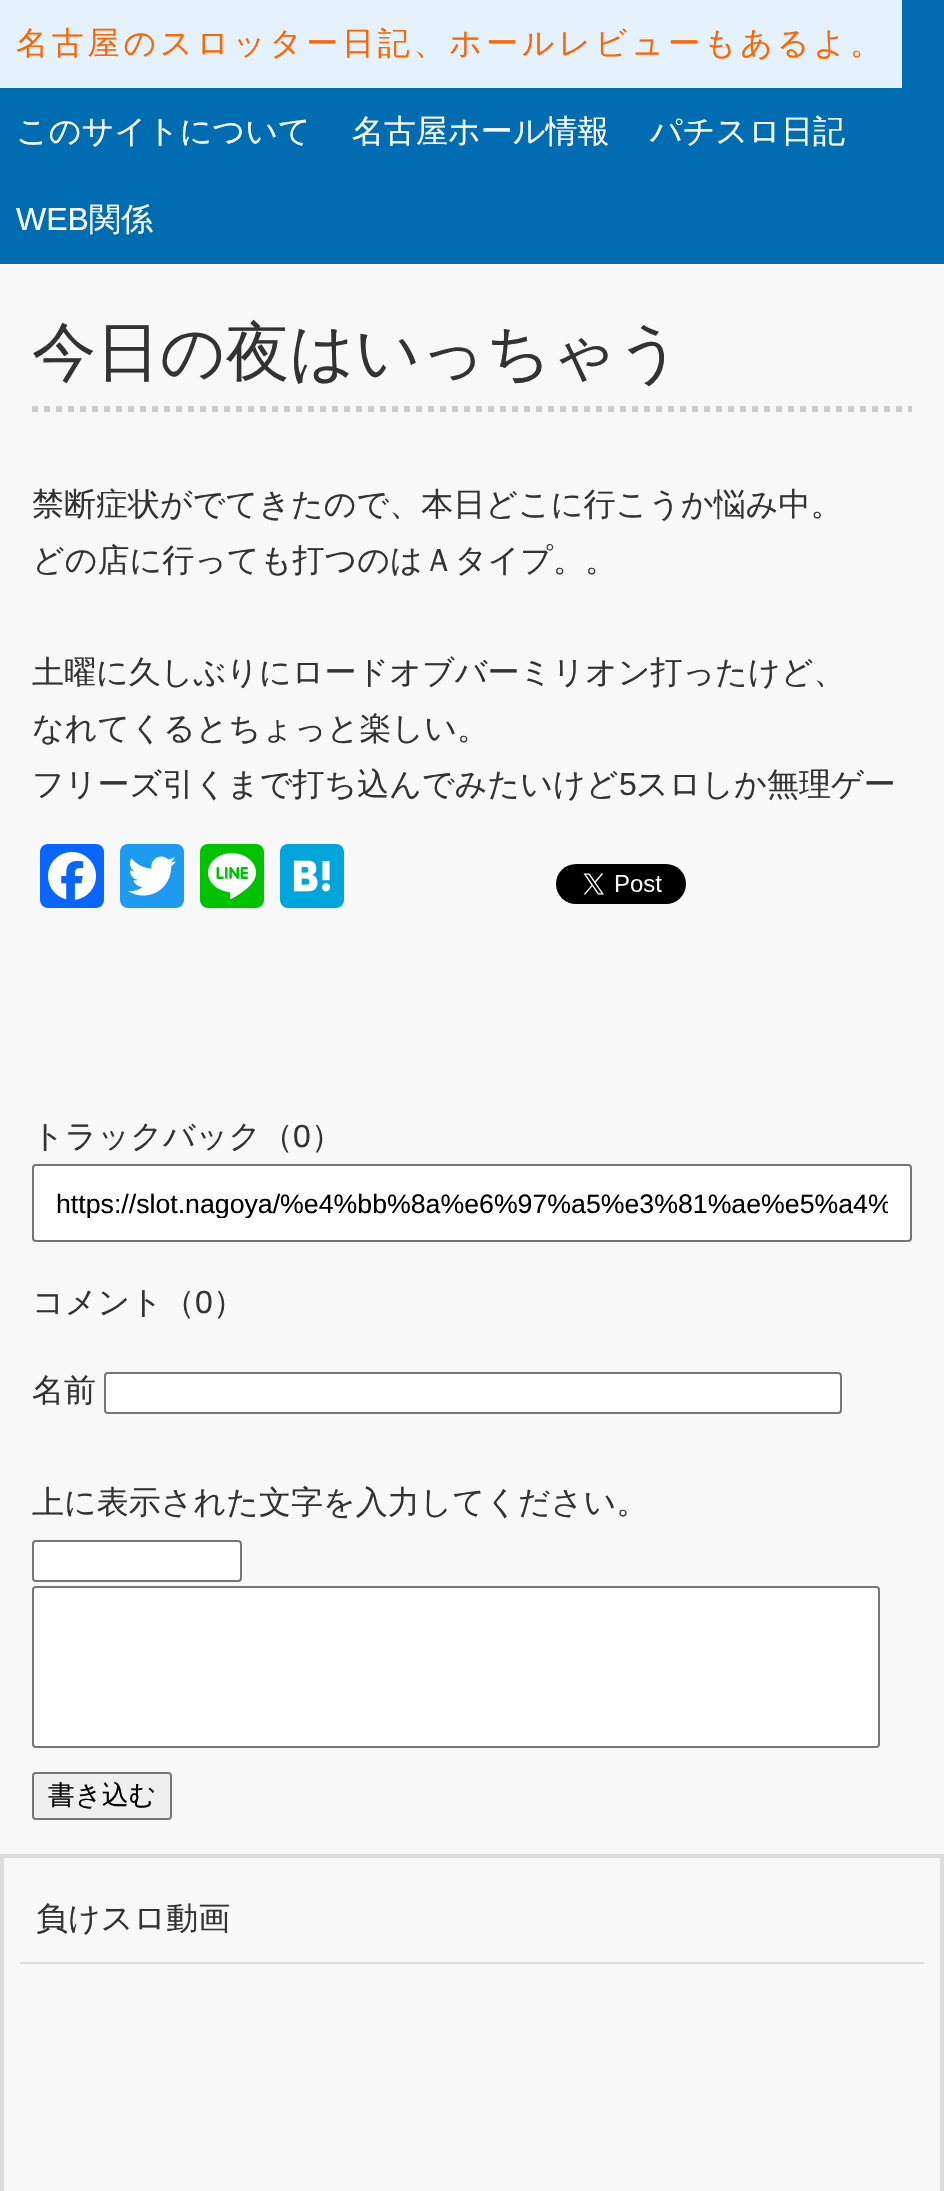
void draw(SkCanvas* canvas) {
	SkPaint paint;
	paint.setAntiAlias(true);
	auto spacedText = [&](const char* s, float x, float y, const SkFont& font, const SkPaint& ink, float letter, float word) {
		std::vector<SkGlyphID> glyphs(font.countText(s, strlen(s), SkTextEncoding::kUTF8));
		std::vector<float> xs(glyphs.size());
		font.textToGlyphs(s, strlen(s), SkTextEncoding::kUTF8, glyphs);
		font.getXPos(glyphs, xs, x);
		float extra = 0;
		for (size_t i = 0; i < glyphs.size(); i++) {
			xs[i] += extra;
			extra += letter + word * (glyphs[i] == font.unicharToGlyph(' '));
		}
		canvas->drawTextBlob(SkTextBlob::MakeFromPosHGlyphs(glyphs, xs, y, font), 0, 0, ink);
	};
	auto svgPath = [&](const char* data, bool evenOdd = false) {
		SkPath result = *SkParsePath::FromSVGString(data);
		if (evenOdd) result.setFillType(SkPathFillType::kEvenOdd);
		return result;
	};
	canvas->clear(0xfff8f8f8);
	paint.setColor(0xff006db3);
	canvas->drawRect(SkRect::MakeXYWH(0, 0, 944, 264), paint);
	paint.setColor(0xffffffff);
	canvas->drawRect(SkRect::MakeXYWH(0, 264, 944, 2), paint);
	paint.setColor(0xffe3f2fd);
	canvas->drawRect(SkRect::MakeXYWH(0, 0, 902, 88), paint);
	SkFont f1(fontMgr->matchFamilyStyle("WenQuanYi Zen Hei", SkFontStyle(500, SkFontStyle::kNormal_Width, SkFontStyle::kUpright_Slant)), 32);
	f1.setSubpixel(true);
	paint.setColor(0xffff6600);
	spacedText("名古屋のスロッター日記、ホールレビューもあるよ。", 16, 54, f1, paint, 3.8, 0);
	paint.setColor(0xffffffff);
	canvas->drawString("このサイトについて", 16, 142, f1, paint);
	canvas->drawString("名古屋ホール情報", 352, 142, f1, paint);
	canvas->drawString("パチスロ日記", 650, 142, f1, paint);
	SkFont f2(fontMgr->matchFamilyStyle("Liberation Sans", SkFontStyle::Normal()), 32);
	f2.setSubpixel(true);
	canvas->drawString("WEB", 16, 230, f2, paint);
	canvas->drawString("関係", 89, 230, f1, paint);
	paint.setStroke(true);
	paint.setStrokeWidth(6);
	paint.setColor(0xffcccccc);
	paint.setPathEffect(SkDashPathEffect::Make({{6, 6}}, 0));
	canvas->drawPath(svgPath("M32 409H912"), paint);
	paint.setPathEffect(nullptr);
	SkFont f3(fontMgr->matchFamilyStyle("WenQuanYi Zen Hei", SkFontStyle(500, SkFontStyle::kNormal_Width, SkFontStyle::kUpright_Slant)), 64);
	f3.setSubpixel(true);
	paint.setStroke(false);
	paint.setColor(0xff333333);
	canvas->drawString("今日の夜はいっちゃう", 32, 374, f3, paint);
	canvas->drawString("禁断症状がでてきたので、本日どこに行こうか悩み中。", 32, 515, f1, paint);
	canvas->drawString("どの店に行っても打つのはＡタイプ。。", 32, 571, f1, paint);
	canvas->drawString("土曜に久しぶりにロードオブバーミリオン打ったけど、", 32, 683, f1, paint);
	canvas->drawString("なれてくるとちょっと楽しい。", 32, 739, f1, paint);
	canvas->drawString("フリーズ引くまで打ち込んでみたいけど", 32, 795, f1, paint);
	canvas->drawString("5", 619, 795, f2, paint);
	canvas->drawString("スロしか無理ゲー", 636, 795, f1, paint);
	paint.setColor(0xff0866ff);
	canvas->drawRoundRect(SkRect::MakeXYWH(40, 844, 64, 64), 8, 8, paint);
	canvas->drawImageRect(SkImages::DeferredFromEncodedData(SkData::MakeFromFileName("img1.png")), SkRect::MakeXYWH(48, 852, 48, 48), SkSamplingOptions());
	paint.setColor(0xff1d9bf0);
	canvas->drawRoundRect(SkRect::MakeXYWH(120, 844, 64, 64), 8, 8, paint);
	canvas->drawImageRect(SkImages::DeferredFromEncodedData(SkData::MakeFromFileName("img2.png")), SkRect::MakeXYWH(128, 856, 48, 40), SkSamplingOptions());
	paint.setColor(0xff00c300);
	canvas->drawRoundRect(SkRect::MakeXYWH(200, 844, 64, 64), 8, 8, paint);
	canvas->drawImageRect(SkImages::DeferredFromEncodedData(SkData::MakeFromFileName("img3.png")), SkRect::MakeXYWH(208, 853, 48, 46), SkSamplingOptions());
	paint.setColor(0xff00a6db);
	canvas->drawRoundRect(SkRect::MakeXYWH(280, 844, 64, 64), 8, 8, paint);
	canvas->drawImageRect(SkImages::DeferredFromEncodedData(SkData::MakeFromFileName("img4.png")), SkRect::MakeXYWH(293, 860, 38, 32), SkSamplingOptions());
	canvas->drawImageRect(SkImages::DeferredFromEncodedData(SkData::MakeFromFileName("img5.png")), SkRect::MakeXYWH(556, 864, 130, 40), SkSamplingOptions());
	paint.setColor(0xff333333);
	canvas->drawString("トラックバック（", 32, 1147, f1, paint);
	canvas->drawString("0", 293, 1147, f2, paint);
	canvas->drawString("）", 311, 1147, f1, paint);
	paint.setColor(0xffffffff);
	canvas->drawRoundRect(SkRect::MakeXYWH(33, 1165, 878, 76), 3, 3, paint);
	paint.setStroke(true);
	paint.setStrokeWidth(2);
	paint.setColor(0xff767676);
	canvas->drawRoundRect(SkRect::MakeXYWH(33, 1165, 878, 76), 3, 3, paint);
	canvas->save();
	canvas->clipRect(SkRect::MakeXYWH(56, 1188, 832, 30));
	SkFont f4(fontMgr->matchFamilyStyle("Liberation Sans", SkFontStyle::Normal()), 26.7);
	f4.setSubpixel(true);
	paint.setStroke(false);
	paint.setColor(0xff000000);
	canvas->drawString("https://slot.nagoya/%e4%bb%8a%e6%97%a5%e3%81%ae%e5%a4%", 56, 1213, f4, paint);
	canvas->restore();
	paint.setColor(0xff333333);
	canvas->drawString("コメント（", 32, 1313, f1, paint);
	canvas->drawString("0", 195, 1313, f2, paint);
	canvas->drawString("）", 213, 1313, f1, paint);
	canvas->drawString("名前", 32, 1401, f1, paint);
	paint.setColor(0xffffffff);
	canvas->drawRoundRect(SkRect::MakeXYWH(105, 1373, 736, 40), 3, 3, paint);
	paint.setStroke(true);
	paint.setColor(0xff767676);
	canvas->drawRoundRect(SkRect::MakeXYWH(105, 1373, 736, 40), 3, 3, paint);
	paint.setStroke(false);
	paint.setColor(0xff333333);
	canvas->drawString("上に表示された文字を入力してください。", 32, 1513, f1, paint);
	paint.setColor(0xffffffff);
	canvas->drawRoundRect(SkRect::MakeXYWH(33, 1541, 208, 40), 3, 3, paint);
	paint.setStroke(true);
	paint.setColor(0xff767676);
	canvas->drawRoundRect(SkRect::MakeXYWH(33, 1541, 208, 40), 3, 3, paint);
	paint.setStroke(false);
	paint.setColor(0xffffffff);
	canvas->drawRoundRect(SkRect::MakeXYWH(33, 1587, 846, 160), 3, 3, paint);
	paint.setStroke(true);
	paint.setColor(0xff767676);
	canvas->drawRoundRect(SkRect::MakeXYWH(33, 1587, 846, 160), 3, 3, paint);
	paint.setStroke(false);
	paint.setColor(0xffefefef);
	canvas->drawRoundRect(SkRect::MakeXYWH(33, 1773, 138, 46), 3, 3, paint);
	paint.setStroke(true);
	paint.setColor(0xff767676);
	canvas->drawRoundRect(SkRect::MakeXYWH(33, 1773, 138, 46), 3, 3, paint);
	SkFont f5(fontMgr->matchFamilyStyle("WenQuanYi Zen Hei", SkFontStyle(500, SkFontStyle::kNormal_Width, SkFontStyle::kUpright_Slant)), 26.7);
	f5.setSubpixel(true);
	paint.setStroke(false);
	paint.setColor(0xff000000);
	canvas->drawString("書き込む", 48, 1804, f5, paint);
	paint.setStroke(true);
	paint.setColor(0xffdddddd);
	canvas->drawRect(SkRect::MakeXYWH(1, 1855, 942, 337), paint);
	canvas->drawRect(SkRect::MakeXYWH(3, 1857, 938, 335), paint);
	paint.setStroke(false);
	paint.setColor(0xff333333);
	canvas->drawString("負けスロ動画", 36, 1929, f1, paint);
	paint.setColor(0xffdddddd);
	canvas->drawRect(SkRect::MakeXYWH(20, 1962, 904, 2), paint);
}
